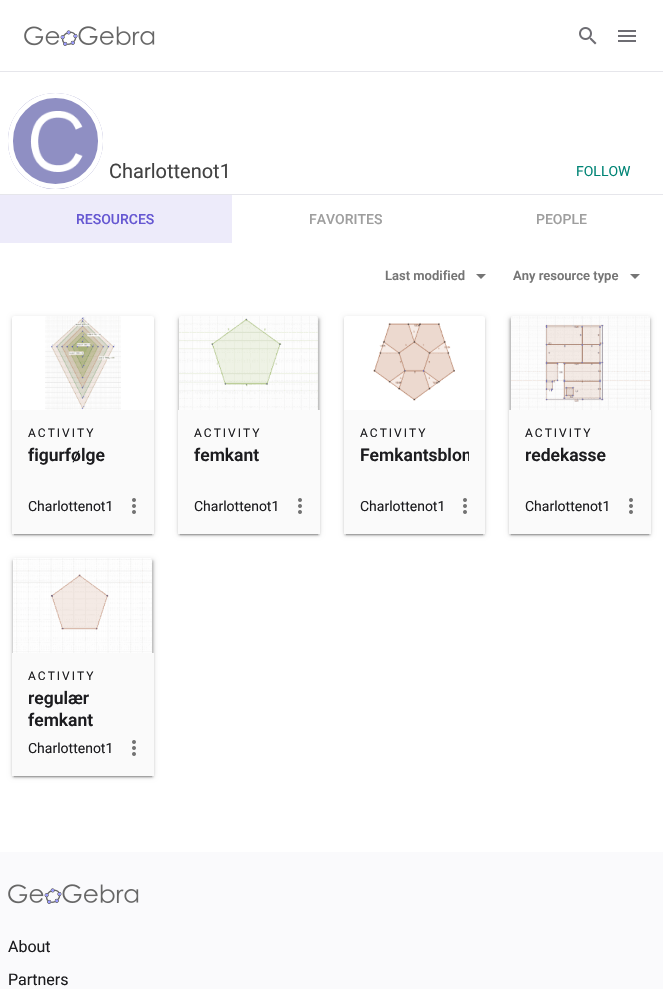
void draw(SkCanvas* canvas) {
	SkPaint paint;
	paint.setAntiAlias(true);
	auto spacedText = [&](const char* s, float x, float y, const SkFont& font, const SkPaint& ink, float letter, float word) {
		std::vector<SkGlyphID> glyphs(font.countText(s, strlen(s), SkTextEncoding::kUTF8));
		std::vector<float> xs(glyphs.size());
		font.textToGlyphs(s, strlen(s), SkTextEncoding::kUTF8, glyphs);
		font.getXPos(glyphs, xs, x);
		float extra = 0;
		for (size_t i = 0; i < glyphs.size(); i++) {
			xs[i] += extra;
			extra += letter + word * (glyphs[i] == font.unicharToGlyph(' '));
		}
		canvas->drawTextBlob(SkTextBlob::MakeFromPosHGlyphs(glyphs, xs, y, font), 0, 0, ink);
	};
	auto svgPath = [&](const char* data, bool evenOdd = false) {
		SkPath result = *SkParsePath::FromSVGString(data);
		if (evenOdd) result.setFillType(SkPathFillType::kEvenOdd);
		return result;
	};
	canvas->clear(0xffffffff);
	paint.setColor(0xffe6e6eb);
	canvas->drawRect(SkRect::MakeXYWH(0, 71, 663, 1), paint);
	canvas->drawImageRect(SkImages::DeferredFromEncodedData(SkData::MakeFromFileName("img1.png")), SkRect::MakeXYWH(24, 26, 131, 20), SkSamplingOptions());
	canvas->drawImageRect(SkImages::DeferredFromEncodedData(SkData::MakeFromFileName("img2.png")), SkRect::MakeXYWH(579, 27, 18, 18), SkSamplingOptions());
	canvas->drawImageRect(SkImages::DeferredFromEncodedData(SkData::MakeFromFileName("img3.png")), SkRect::MakeXYWH(618, 30, 18, 12), SkSamplingOptions());
	canvas->drawRect(SkRect::MakeXYWH(0, 194, 663, 1), paint);
	canvas->drawImageRect(SkImages::DeferredFromEncodedData(SkData::MakeFromFileName("img4.png")), SkRect::MakeXYWH(8, 93, 95, 96), SkSamplingOptions());
	paint.setStroke(true);
	paint.setStrokeWidth(5);
	paint.setColor(0xffffffff);
	canvas->drawRoundRect(SkRect::MakeXYWH(10.5, 95.5, 90, 91), 45, 45, paint);
	SkFont f1(fontMgr->matchFamilyStyle("Roboto", SkFontStyle::Normal()), 20);
	f1.setSubpixel(true);
	paint.setStroke(false);
	paint.setColor(0xff424242);
	canvas->drawString("Charlottenot1", 109, 178, f1, paint);
	SkFont f2(fontMgr->matchFamilyStyle("Roboto", SkFontStyle::Normal()), 14);
	f2.setSubpixel(true);
	paint.setColor(0xff008475);
	canvas->drawString("FOLLOW", 576, 176, f2, paint);
	paint.setColor(0xffedebfa);
	canvas->drawRect(SkRect::MakeXYWH(0, 195, 232, 48), paint);
	SkFont f3(fontMgr->matchFamilyStyle("Roboto", SkFontStyle(500, SkFontStyle::kNormal_Width, SkFontStyle::kUpright_Slant)), 14);
	f3.setSubpixel(true);
	paint.setColor(0xff6557d2);
	canvas->drawString("RESOURCES", 76, 224, f3, paint);
	paint.setColor(0xff9e9e9e);
	canvas->drawString("FAVORITES", 309, 224, f3, paint);
	canvas->drawString("PEOPLE", 536, 224, f3, paint);
	SkFont f4(fontMgr->matchFamilyStyle("Roboto", SkFontStyle(600, SkFontStyle::kNormal_Width, SkFontStyle::kUpright_Slant)), 13);
	f4.setSubpixel(true);
	paint.setColor(0xff757575);
	canvas->drawString("Last modified", 385, 280, f4, paint);
	canvas->drawPath(svgPath("M476 274L481 279L486 274Z"), paint);
	canvas->drawString("Any resource type", 513, 280, f4, paint);
	canvas->drawPath(svgPath("M630 274L635 279L640 274Z"), paint);
	canvas->save();
	canvas->clipPath(svgPath("M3 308H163V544H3ZM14 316H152C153 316 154 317 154 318V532C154 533 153 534 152 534H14C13 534 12 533 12 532V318C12 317 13 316 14 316Z", true), true);
	paint.setColor(0x1f000000);
	paint.setMaskFilter(SkMaskFilter::MakeBlur(kNormal_SkBlurStyle, 2.5));
	canvas->drawRoundRect(SkRect::MakeXYWH(12, 317, 142, 218), 2, 2, paint);
	paint.setMaskFilter(nullptr);
	canvas->restore();
	canvas->save();
	canvas->clipPath(svgPath("M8 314H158V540H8ZM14 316H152C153 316 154 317 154 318V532C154 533 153 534 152 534H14C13 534 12 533 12 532V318C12 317 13 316 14 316Z", true), true);
	paint.setColor(0x24000000);
	paint.setMaskFilter(SkMaskFilter::MakeBlur(kNormal_SkBlurStyle, 1));
	canvas->drawRoundRect(SkRect::MakeXYWH(12, 318, 142, 218), 2, 2, paint);
	paint.setMaskFilter(nullptr);
	canvas->restore();
	canvas->save();
	canvas->clipRect(SkRect::MakeXYWH(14, 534, 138, 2));
	paint.setColor(0x33000000);
	paint.setMaskFilter(SkMaskFilter::MakeBlur(kNormal_SkBlurStyle, 0.5));
	canvas->drawRect(SkRect::MakeXYWH(14, 321, 138, 214), paint);
	paint.setMaskFilter(nullptr);
	canvas->restore();
	canvas->drawImageRect(SkImages::DeferredFromEncodedData(SkData::MakeFromFileName("img5.png")), SkRect::MakeXYWH(45, 316, 76, 94), SkSamplingOptions());
	paint.setColor(0xfffafafa);
	canvas->drawRect(SkRect::MakeXYWH(12, 410, 142, 124), paint);
	SkFont f5(fontMgr->matchFamilyStyle("Roboto", SkFontStyle::Normal()), 12);
	f5.setSubpixel(true);
	paint.setColor(0xff1c1c1f);
	spacedText("ACTIVITY", 28, 437, f5, paint, 2, 0);
	SkFont f6(fontMgr->matchFamilyStyle("Roboto", SkFontStyle(600, SkFontStyle::kNormal_Width, SkFontStyle::kUpright_Slant)), 17.5);
	f6.setSubpixel(true);
	canvas->drawString("figurfølge", 28, 461, f6, paint);
	canvas->drawString("Charlottenot1", 28, 511, f2, paint);
	canvas->drawImageRect(SkImages::DeferredFromEncodedData(SkData::MakeFromFileName("img6.png")), SkRect::MakeXYWH(132, 498, 4, 16), SkSamplingOptions());
	paint.setColor(0x1f000000);
	paint.setMaskFilter(SkMaskFilter::MakeBlur(kNormal_SkBlurStyle, 2.5));
	canvas->drawRoundRect(SkRect::MakeXYWH(178, 317, 142, 218), 2, 2, paint);
	paint.setMaskFilter(nullptr);
	paint.setColor(0x24000000);
	paint.setMaskFilter(SkMaskFilter::MakeBlur(kNormal_SkBlurStyle, 1));
	canvas->drawRoundRect(SkRect::MakeXYWH(178, 318, 142, 218), 2, 2, paint);
	paint.setMaskFilter(nullptr);
	paint.setColor(0x33000000);
	paint.setMaskFilter(SkMaskFilter::MakeBlur(kNormal_SkBlurStyle, 0.5));
	canvas->drawRect(SkRect::MakeXYWH(180, 321, 138, 214), paint);
	paint.setMaskFilter(nullptr);
	canvas->drawImageRect(SkImages::DeferredFromEncodedData(SkData::MakeFromFileName("img7.png")), SkRect::MakeXYWH(179, 316, 139, 94), SkSamplingOptions());
	paint.setColor(0xfffafafa);
	canvas->drawRect(SkRect::MakeXYWH(178, 410, 142, 124), paint);
	paint.setColor(0xff1c1c1f);
	spacedText("ACTIVITY", 194, 437, f5, paint, 2, 0);
	canvas->drawString("femkant", 194, 461, f6, paint);
	canvas->drawString("Charlottenot1", 194, 511, f2, paint);
	canvas->drawImageRect(SkImages::DeferredFromEncodedData(SkData::MakeFromFileName("img6.png")), SkRect::MakeXYWH(298, 498, 4, 16), SkSamplingOptions());
	canvas->save();
	canvas->clipPath(svgPath("M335 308H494V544H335ZM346 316H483C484 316 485 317 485 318V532C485 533 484 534 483 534H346C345 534 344 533 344 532V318C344 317 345 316 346 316Z", true), true);
	paint.setColor(0x1f000000);
	paint.setMaskFilter(SkMaskFilter::MakeBlur(kNormal_SkBlurStyle, 2.5));
	canvas->drawRoundRect(SkRect::MakeXYWH(344, 317, 141, 218), 2, 2, paint);
	paint.setMaskFilter(nullptr);
	canvas->restore();
	canvas->save();
	canvas->clipPath(svgPath("M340 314H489V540H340ZM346 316H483C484 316 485 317 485 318V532C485 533 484 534 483 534H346C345 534 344 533 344 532V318C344 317 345 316 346 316Z", true), true);
	paint.setColor(0x24000000);
	paint.setMaskFilter(SkMaskFilter::MakeBlur(kNormal_SkBlurStyle, 1));
	canvas->drawRoundRect(SkRect::MakeXYWH(344, 318, 141, 218), 2, 2, paint);
	paint.setMaskFilter(nullptr);
	canvas->restore();
	canvas->save();
	canvas->clipRect(SkRect::MakeXYWH(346, 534, 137, 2));
	paint.setColor(0x33000000);
	paint.setMaskFilter(SkMaskFilter::MakeBlur(kNormal_SkBlurStyle, 0.5));
	canvas->drawRect(SkRect::MakeXYWH(346, 321, 137, 214), paint);
	paint.setMaskFilter(nullptr);
	canvas->restore();
	canvas->drawImageRect(SkImages::DeferredFromEncodedData(SkData::MakeFromFileName("img8.png")), SkRect::MakeXYWH(373, 322, 82, 79), SkSamplingOptions());
	paint.setColor(0xfffafafa);
	canvas->drawRect(SkRect::MakeXYWH(344, 410, 141, 124), paint);
	paint.setColor(0xff1c1c1f);
	spacedText("ACTIVITY", 360, 437, f5, paint, 2, 0);
	canvas->save();
	canvas->clipRect(SkRect::MakeXYWH(360, 444, 109, 48));
	canvas->drawString("Femkantsblom", 360, 461, f6, paint);
	canvas->restore();
	canvas->drawString("Charlottenot1", 360, 511, f2, paint);
	canvas->drawImageRect(SkImages::DeferredFromEncodedData(SkData::MakeFromFileName("img6.png")), SkRect::MakeXYWH(463, 498, 4, 16), SkSamplingOptions());
	paint.setColor(0x1f000000);
	paint.setMaskFilter(SkMaskFilter::MakeBlur(kNormal_SkBlurStyle, 2.5));
	canvas->drawRoundRect(SkRect::MakeXYWH(509, 317, 142, 218), 2, 2, paint);
	paint.setMaskFilter(nullptr);
	paint.setColor(0x24000000);
	paint.setMaskFilter(SkMaskFilter::MakeBlur(kNormal_SkBlurStyle, 1));
	canvas->drawRoundRect(SkRect::MakeXYWH(509, 318, 142, 218), 2, 2, paint);
	paint.setMaskFilter(nullptr);
	paint.setColor(0x33000000);
	paint.setMaskFilter(SkMaskFilter::MakeBlur(kNormal_SkBlurStyle, 0.5));
	canvas->drawRect(SkRect::MakeXYWH(511, 321, 138, 214), paint);
	paint.setMaskFilter(nullptr);
	canvas->drawImageRect(SkImages::DeferredFromEncodedData(SkData::MakeFromFileName("img9.png")), SkRect::MakeXYWH(511, 316, 139, 94), SkSamplingOptions());
	paint.setColor(0xfffafafa);
	canvas->drawRect(SkRect::MakeXYWH(509, 410, 142, 124), paint);
	paint.setColor(0xff1c1c1f);
	spacedText("ACTIVITY", 525, 437, f5, paint, 2, 0);
	canvas->drawString("redekasse", 525, 461, f6, paint);
	canvas->drawString("Charlottenot1", 525, 511, f2, paint);
	canvas->drawImageRect(SkImages::DeferredFromEncodedData(SkData::MakeFromFileName("img6.png")), SkRect::MakeXYWH(629, 498, 4, 16), SkSamplingOptions());
	paint.setColor(0x1f000000);
	paint.setMaskFilter(SkMaskFilter::MakeBlur(kNormal_SkBlurStyle, 2.5));
	canvas->drawRoundRect(SkRect::MakeXYWH(12, 559, 142, 218), 2, 2, paint);
	paint.setMaskFilter(nullptr);
	paint.setColor(0x24000000);
	paint.setMaskFilter(SkMaskFilter::MakeBlur(kNormal_SkBlurStyle, 1));
	canvas->drawRoundRect(SkRect::MakeXYWH(12, 560, 142, 218), 2, 2, paint);
	paint.setMaskFilter(nullptr);
	paint.setColor(0x33000000);
	paint.setMaskFilter(SkMaskFilter::MakeBlur(kNormal_SkBlurStyle, 0.5));
	canvas->drawRect(SkRect::MakeXYWH(14, 563, 138, 214), paint);
	paint.setMaskFilter(nullptr);
	canvas->drawImageRect(SkImages::DeferredFromEncodedData(SkData::MakeFromFileName("img10.png")), SkRect::MakeXYWH(13, 558, 139, 95), SkSamplingOptions());
	paint.setColor(0xfffafafa);
	canvas->drawRect(SkRect::MakeXYWH(12, 653, 142, 123), paint);
	paint.setColor(0xff1c1c1f);
	spacedText("ACTIVITY", 28, 680, f5, paint, 2, 0);
	canvas->drawString("regulær", 28, 704, f6, paint);
	canvas->drawString("femkant", 28, 726, f6, paint);
	canvas->drawString("Charlottenot1", 28, 753, f2, paint);
	canvas->drawImageRect(SkImages::DeferredFromEncodedData(SkData::MakeFromFileName("img6.png")), SkRect::MakeXYWH(132, 740, 4, 16), SkSamplingOptions());
	paint.setColor(0xfffafafc);
	canvas->drawRect(SkRect::MakeXYWH(0, 852, 663, 137), paint);
	canvas->drawImageRect(SkImages::DeferredFromEncodedData(SkData::MakeFromFileName("img11.png")), SkRect::MakeXYWH(8, 884, 131, 20), SkSamplingOptions());
	SkFont f7(fontMgr->matchFamilyStyle("Roboto", SkFontStyle::Normal()), 16);
	f7.setSubpixel(true);
	paint.setColor(0xff1c1c1f);
	canvas->drawString("About", 8, 952, f7, paint);
	canvas->drawString("Partners", 8, 985, f7, paint);
}
